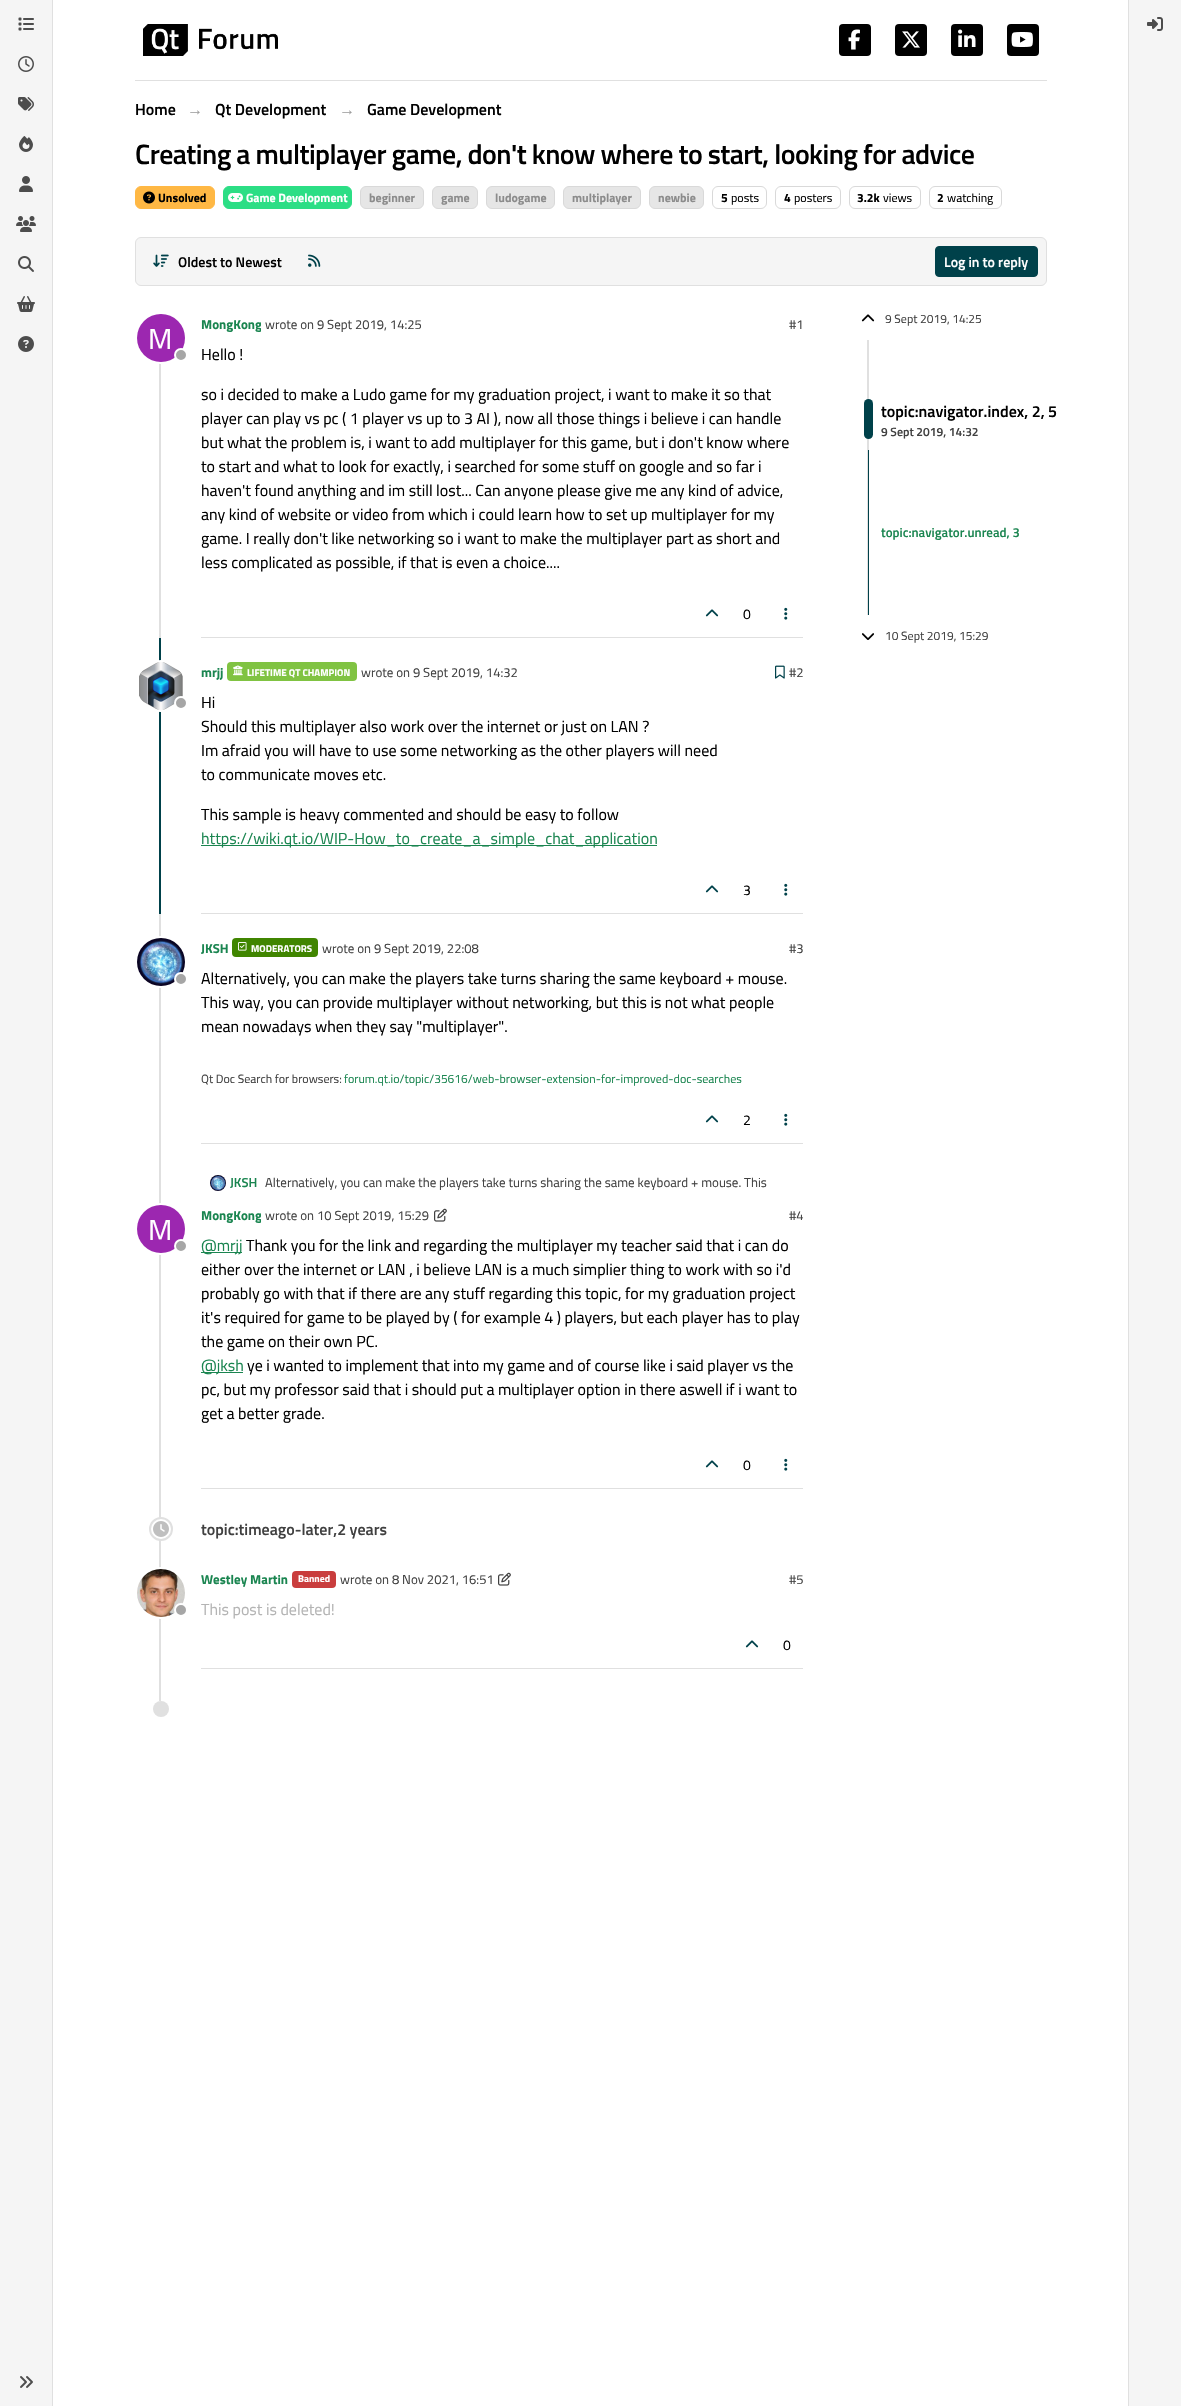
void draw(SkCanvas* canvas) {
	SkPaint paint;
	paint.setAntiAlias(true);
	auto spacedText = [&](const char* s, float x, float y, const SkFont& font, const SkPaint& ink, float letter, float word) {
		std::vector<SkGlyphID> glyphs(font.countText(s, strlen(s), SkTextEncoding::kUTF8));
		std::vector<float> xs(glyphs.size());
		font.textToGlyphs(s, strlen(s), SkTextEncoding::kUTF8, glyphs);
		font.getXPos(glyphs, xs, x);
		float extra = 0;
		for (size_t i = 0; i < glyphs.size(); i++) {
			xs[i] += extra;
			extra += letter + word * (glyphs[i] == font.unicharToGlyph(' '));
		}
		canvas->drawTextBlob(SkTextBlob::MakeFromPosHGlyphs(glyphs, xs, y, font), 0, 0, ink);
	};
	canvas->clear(0xffffffff);
	paint.setColor(0xfff5f5f5);
	canvas->drawRect(SkRect::MakeXYWH(0, 0, 52, 2406), paint);
	paint.setColor(0xffe0e0e0);
	canvas->drawRect(SkRect::MakeXYWH(52, 0, 1, 2406), paint);
	canvas->drawImageRect(SkImages::DeferredFromEncodedData(SkData::MakeFromFileName("img1.png")), SkRect::MakeXYWH(18, 17, 16, 14), SkSamplingOptions());
	canvas->drawImageRect(SkImages::DeferredFromEncodedData(SkData::MakeFromFileName("img2.png")), SkRect::MakeXYWH(18, 56, 16, 16), SkSamplingOptions());
	canvas->drawImageRect(SkImages::DeferredFromEncodedData(SkData::MakeFromFileName("img3.png")), SkRect::MakeXYWH(18, 97, 16, 14), SkSamplingOptions());
	canvas->drawImageRect(SkImages::DeferredFromEncodedData(SkData::MakeFromFileName("img4.png")), SkRect::MakeXYWH(19, 136, 14, 16), SkSamplingOptions());
	canvas->drawImageRect(SkImages::DeferredFromEncodedData(SkData::MakeFromFileName("img5.png")), SkRect::MakeXYWH(19, 176, 14, 16), SkSamplingOptions());
	canvas->drawImageRect(SkImages::DeferredFromEncodedData(SkData::MakeFromFileName("img6.png")), SkRect::MakeXYWH(16, 216, 20, 16), SkSamplingOptions());
	canvas->drawImageRect(SkImages::DeferredFromEncodedData(SkData::MakeFromFileName("img7.png")), SkRect::MakeXYWH(18, 256, 16, 16), SkSamplingOptions());
	canvas->drawImageRect(SkImages::DeferredFromEncodedData(SkData::MakeFromFileName("img8.png")), SkRect::MakeXYWH(17, 296, 18, 16), SkSamplingOptions());
	canvas->drawImageRect(SkImages::DeferredFromEncodedData(SkData::MakeFromFileName("img9.png")), SkRect::MakeXYWH(18, 336, 16, 16), SkSamplingOptions());
	canvas->drawImageRect(SkImages::DeferredFromEncodedData(SkData::MakeFromFileName("img10.png")), SkRect::MakeXYWH(20, 2376, 13, 12), SkSamplingOptions());
	canvas->drawRect(SkRect::MakeXYWH(135, 80, 912, 1), paint);
	canvas->drawImageRect(SkImages::DeferredFromEncodedData(SkData::MakeFromFileName("img11.png")), SkRect::MakeXYWH(143, 24, 135, 32), SkSamplingOptions());
	paint.setColor(0xff000000);
	canvas->drawRoundRect(SkRect::MakeXYWH(839, 24, 32, 32), 4, 4, paint);
	canvas->drawImageRect(SkImages::DeferredFromEncodedData(SkData::MakeFromFileName("img12.png")), SkRect::MakeXYWH(848, 29, 12, 21), SkSamplingOptions());
	canvas->drawRoundRect(SkRect::MakeXYWH(895, 24, 32, 32), 4, 4, paint);
	canvas->drawImageRect(SkImages::DeferredFromEncodedData(SkData::MakeFromFileName("img13.png")), SkRect::MakeXYWH(902, 31, 18, 17), SkSamplingOptions());
	canvas->drawRoundRect(SkRect::MakeXYWH(951, 24, 32, 32), 4, 4, paint);
	canvas->drawImageRect(SkImages::DeferredFromEncodedData(SkData::MakeFromFileName("img14.png")), SkRect::MakeXYWH(958, 29, 18, 18), SkSamplingOptions());
	canvas->drawRoundRect(SkRect::MakeXYWH(1007, 24, 32, 32), 4, 4, paint);
	canvas->drawImageRect(SkImages::DeferredFromEncodedData(SkData::MakeFromFileName("img15.png")), SkRect::MakeXYWH(1011, 32, 22, 15), SkSamplingOptions());
	SkFont f1(fontMgr->matchFamilyStyle("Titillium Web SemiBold", SkFontStyle(600, SkFontStyle::kNormal_Width, SkFontStyle::kUpright_Slant)), 16);
	f1.setSubpixel(true);
	canvas->drawString("Home", 135, 115, f1, paint);
	SkFont f2(fontMgr->matchFamilyStyle("Liberation Sans", SkFontStyle::Bold()), 16);
	f2.setSubpixel(true);
	paint.setColor(0xff9e9e9e);
	canvas->drawString("→", 187, 115, f2, paint);
	paint.setColor(0xff000000);
	canvas->drawString("Qt Development", 215, 115, f1, paint);
	paint.setColor(0xff9e9e9e);
	canvas->drawString("→", 339, 115, f2, paint);
	paint.setColor(0xff000000);
	canvas->drawString("Game Development", 367, 115, f1, paint);
	SkFont f3(fontMgr->matchFamilyStyle("Titillium Web SemiBold", SkFontStyle(600, SkFontStyle::kNormal_Width, SkFontStyle::kUpright_Slant)), 27.9);
	f3.setSubpixel(true);
	spacedText("Creating a multiplayer game, don't know where to start, looking for advice", 135, 164, f3, paint, -0.55, 0);
	paint.setColor(0xffffb844);
	canvas->drawRoundRect(SkRect::MakeXYWH(135.5, 186.5, 79, 22), 5.5, 5.5, paint);
	paint.setStroke(true);
	paint.setStrokeWidth(1);
	canvas->drawRoundRect(SkRect::MakeXYWH(135.5, 186.5, 79, 22), 5.5, 5.5, paint);
	canvas->drawImageRect(SkImages::DeferredFromEncodedData(SkData::MakeFromFileName("img16.png")), SkRect::MakeXYWH(143, 191, 12, 13), SkSamplingOptions());
	SkFont f4(fontMgr->matchFamilyStyle("Titillium Web", SkFontStyle::Bold()), 12);
	f4.setSubpixel(true);
	paint.setStroke(false);
	paint.setColor(0xff000000);
	canvas->drawString("Unsolved", 158, 202, f4, paint);
	paint.setColor(0xff2cde85);
	canvas->drawRoundRect(SkRect::MakeXYWH(223.5, 186.5, 128, 22), 5.5, 5.5, paint);
	paint.setStroke(true);
	canvas->drawRoundRect(SkRect::MakeXYWH(223.5, 186.5, 128, 22), 5.5, 5.5, paint);
	canvas->drawImageRect(SkImages::DeferredFromEncodedData(SkData::MakeFromFileName("img17.png")), SkRect::MakeXYWH(228, 193, 15, 9), SkSamplingOptions());
	paint.setStroke(false);
	paint.setColor(0xffffffff);
	canvas->drawString("Game Development", 246, 202, f4, paint);
	paint.setColor(0xffe6e6e6);
	canvas->drawRoundRect(SkRect::MakeXYWH(360.5, 186.5, 63, 22), 5.5, 5.5, paint);
	paint.setStroke(true);
	paint.setColor(0xffd9d9d9);
	canvas->drawRoundRect(SkRect::MakeXYWH(360.5, 186.5, 63, 22), 5.5, 5.5, paint);
	paint.setStroke(false);
	paint.setColor(0xff8c8c8c);
	canvas->drawString("beginner", 369, 202, f4, paint);
	paint.setColor(0xffe6e6e6);
	canvas->drawRoundRect(SkRect::MakeXYWH(432.5, 186.5, 45, 22), 5.5, 5.5, paint);
	paint.setStroke(true);
	paint.setColor(0xffd9d9d9);
	canvas->drawRoundRect(SkRect::MakeXYWH(432.5, 186.5, 45, 22), 5.5, 5.5, paint);
	paint.setStroke(false);
	paint.setColor(0xff8c8c8c);
	canvas->drawString("game", 441, 202, f4, paint);
	paint.setColor(0xffe6e6e6);
	canvas->drawRoundRect(SkRect::MakeXYWH(486.5, 186.5, 68, 22), 5.5, 5.5, paint);
	paint.setStroke(true);
	paint.setColor(0xffd9d9d9);
	canvas->drawRoundRect(SkRect::MakeXYWH(486.5, 186.5, 68, 22), 5.5, 5.5, paint);
	paint.setStroke(false);
	paint.setColor(0xff8c8c8c);
	canvas->drawString("ludogame", 495, 202, f4, paint);
	paint.setColor(0xffe6e6e6);
	canvas->drawRoundRect(SkRect::MakeXYWH(563.5, 186.5, 77, 22), 5.5, 5.5, paint);
	paint.setStroke(true);
	paint.setColor(0xffd9d9d9);
	canvas->drawRoundRect(SkRect::MakeXYWH(563.5, 186.5, 77, 22), 5.5, 5.5, paint);
	paint.setStroke(false);
	paint.setColor(0xff8c8c8c);
	canvas->drawString("multiplayer", 572, 202, f4, paint);
	paint.setColor(0xffe6e6e6);
	canvas->drawRoundRect(SkRect::MakeXYWH(649.5, 186.5, 54, 22), 5.5, 5.5, paint);
	paint.setStroke(true);
	paint.setColor(0xffd9d9d9);
	canvas->drawRoundRect(SkRect::MakeXYWH(649.5, 186.5, 54, 22), 5.5, 5.5, paint);
	paint.setStroke(false);
	paint.setColor(0xff8c8c8c);
	canvas->drawString("newbie", 658, 202, f4, paint);
	paint.setStroke(true);
	paint.setColor(0xffd9d9d9);
	canvas->drawRoundRect(SkRect::MakeXYWH(712.5, 186.5, 54, 22), 5.5, 5.5, paint);
	paint.setStroke(false);
	paint.setColor(0xff000000);
	canvas->drawString("5", 721, 202, f4, paint);
	SkFont f5(fontMgr->matchFamilyStyle("Titillium Web", SkFontStyle::Normal()), 12);
	f5.setSubpixel(true);
	canvas->drawString("posts", 731, 202, f5, paint);
	paint.setStroke(true);
	paint.setColor(0xffd9d9d9);
	canvas->drawRoundRect(SkRect::MakeXYWH(775.5, 186.5, 65, 22), 5.5, 5.5, paint);
	paint.setStroke(false);
	paint.setColor(0xff000000);
	canvas->drawString("4", 784, 202, f4, paint);
	canvas->drawString("posters", 794, 202, f5, paint);
	paint.setStroke(true);
	paint.setColor(0xffd9d9d9);
	canvas->drawRoundRect(SkRect::MakeXYWH(849.5, 186.5, 71, 22), 5.5, 5.5, paint);
	paint.setStroke(false);
	paint.setColor(0xff000000);
	canvas->drawString("3.2k", 857, 202, f4, paint);
	canvas->drawString("views", 883, 202, f5, paint);
	paint.setStroke(true);
	paint.setColor(0xffd9d9d9);
	canvas->drawRoundRect(SkRect::MakeXYWH(929.5, 186.5, 72, 22), 5.5, 5.5, paint);
	paint.setStroke(false);
	paint.setColor(0xff000000);
	canvas->drawString("2", 937, 202, f4, paint);
	canvas->drawString("watching", 947, 202, f5, paint);
	paint.setColor(0xfff5f5f5);
	canvas->drawRoundRect(SkRect::MakeXYWH(135.5, 237.5, 911, 48), 5.5, 5.5, paint);
	paint.setStroke(true);
	paint.setColor(0xffe0e0e0);
	canvas->drawRoundRect(SkRect::MakeXYWH(135.5, 237.5, 911, 48), 5.5, 5.5, paint);
	canvas->drawImageRect(SkImages::DeferredFromEncodedData(SkData::MakeFromFileName("img18.png")), SkRect::MakeXYWH(153, 254, 16, 13), SkSamplingOptions());
	SkFont f6(fontMgr->matchFamilyStyle("Titillium Web SemiBold", SkFontStyle(600, SkFontStyle::kNormal_Width, SkFontStyle::kUpright_Slant)), 14);
	f6.setSubpixel(true);
	paint.setStroke(false);
	paint.setColor(0xff000000);
	canvas->drawString("Oldest to Newest", 178, 267, f6, paint);
	canvas->drawImageRect(SkImages::DeferredFromEncodedData(SkData::MakeFromFileName("img19.png")), SkRect::MakeXYWH(308, 254, 13, 13), SkSamplingOptions());
	paint.setColor(0xff00414a);
	canvas->drawRoundRect(SkRect::MakeXYWH(935.5, 246.5, 102, 30), 3.5, 3.5, paint);
	paint.setStroke(true);
	canvas->drawRoundRect(SkRect::MakeXYWH(935.5, 246.5, 102, 30), 3.5, 3.5, paint);
	paint.setStroke(false);
	paint.setColor(0xffffffff);
	canvas->drawString("Log in to reply", 944, 267, f6, paint);
	paint.setColor(0xffe0e0e0);
	canvas->drawRect(SkRect::MakeXYWH(159, 314, 2, 324), paint);
	paint.setStroke(true);
	paint.setStrokeWidth(2);
	paint.setColor(0xffffffff);
	canvas->drawCircle(161, 338, 25, paint);
	paint.setStroke(false);
	paint.setColor(0xff9c27b0);
	canvas->drawCircle(161, 338, 24, paint);
	SkFont f7(fontMgr->matchFamilyStyle("Titillium Web", SkFontStyle::Normal()), 29);
	f7.setSubpixel(true);
	paint.setColor(0xffffffff);
	canvas->drawString("M", 148, 349, f7, paint);
	paint.setColor(0xffa6a6a6);
	canvas->drawCircle(181, 355, 6, paint);
	paint.setStroke(true);
	paint.setColor(0xffffffff);
	canvas->drawCircle(181, 355, 6, paint);
	canvas->save();
	canvas->clipRect(SkRect::MakeXYWH(201, 314, 60, 20));
	SkFont f8(fontMgr->matchFamilyStyle("Titillium Web", SkFontStyle::Bold()), 13);
	f8.setSubpixel(true);
	paint.setStroke(false);
	paint.setColor(0xff1a8550);
	canvas->drawString("MongKong", 201, 329, f8, paint);
	canvas->restore();
	SkFont f9(fontMgr->matchFamilyStyle("Titillium Web", SkFontStyle::Normal()), 13);
	f9.setSubpixel(true);
	paint.setColor(0xff404040);
	canvas->drawString("wrote on 9 Sept 2019, 14:25", 265, 329, f9, paint);
	canvas->drawString("#1", 789, 329, f9, paint);
	SkFont f10(fontMgr->matchFamilyStyle("Titillium Web", SkFontStyle::Normal()), 16);
	f10.setSubpixel(true);
	paint.setColor(0xff000000);
	canvas->drawString("Hello !", 201, 360, f10, paint);
	canvas->drawString("so i decided to make a Ludo game for my graduation project, i want to make it so that", 201, 400, f10, paint);
	canvas->drawString("player can play vs pc ( 1 player vs up to 3 AI ), now all those things i believe i can handle", 201, 424, f10, paint);
	canvas->drawString("but what the problem is, i want to add multiplayer for this game, but i don't know where", 201, 448, f10, paint);
	canvas->drawString("to start and what to look for exactly, i searched for some stuff on google and so far i", 201, 472, f10, paint);
	canvas->drawString("haven't found anything and im still lost... Can anyone please give me any kind of advice,", 201, 496, f10, paint);
	canvas->drawString("any kind of website or video from which i could learn how to set up multiplayer for my", 201, 520, f10, paint);
	canvas->drawString("game. I really don't like networking so i want to make the multiplayer part as short and", 201, 544, f10, paint);
	canvas->drawString("less complicated as possible, if that is even a choice....", 201, 568, f10, paint);
	paint.setColor(0xffe0e0e0);
	canvas->drawRect(SkRect::MakeXYWH(201, 637, 602, 1), paint);
	canvas->drawImageRect(SkImages::DeferredFromEncodedData(SkData::MakeFromFileName("img20.png")), SkRect::MakeXYWH(705, 609, 14, 8), SkSamplingOptions());
	SkFont f11(fontMgr->matchFamilyStyle("Titillium Web", SkFontStyle::Normal()), 14);
	f11.setSubpixel(true);
	paint.setColor(0xff000000);
	canvas->drawString("0", 743, 619, f11, paint);
	canvas->drawImageRect(SkImages::DeferredFromEncodedData(SkData::MakeFromFileName("img21.png")), SkRect::MakeXYWH(784, 607, 4, 13), SkSamplingOptions());
	paint.setColor(0xff00414a);
	canvas->drawRect(SkRect::MakeXYWH(159, 638, 2, 276), paint);
	paint.setColor(0xffffffff);
	canvas->drawCircle(161, 686, 25, paint);
	paint.setStroke(true);
	canvas->drawCircle(161, 686, 25, paint);
	canvas->drawImageRect(SkImages::DeferredFromEncodedData(SkData::MakeFromFileName("img22.png")), SkRect::MakeXYWH(139, 662, 44, 48), SkSamplingOptions());
	paint.setStroke(false);
	paint.setColor(0xffa6a6a6);
	canvas->drawCircle(181, 703, 6, paint);
	paint.setStroke(true);
	paint.setColor(0xffffffff);
	canvas->drawCircle(181, 703, 6, paint);
	paint.setStroke(false);
	paint.setColor(0xff1a8550);
	canvas->drawString("mrjj", 201, 677, f8, paint);
	paint.setColor(0xff80c342);
	canvas->drawRoundRect(SkRect::MakeXYWH(227, 662, 130, 19), 4, 4, paint);
	canvas->drawImageRect(SkImages::DeferredFromEncodedData(SkData::MakeFromFileName("img23.png")), SkRect::MakeXYWH(233, 665, 10, 11), SkSamplingOptions());
	SkFont f12(fontMgr->matchFamilyStyle("Titillium Web", SkFontStyle::Bold()), 9.75);
	f12.setSubpixel(true);
	paint.setColor(0xffffffff);
	canvas->drawString("LIFETIME QT CHAMPION", 247, 676, f12, paint);
	paint.setColor(0xff404040);
	canvas->drawString("wrote on 9 Sept 2019, 14:32", 361, 677, f9, paint);
	canvas->drawImageRect(SkImages::DeferredFromEncodedData(SkData::MakeFromFileName("img24.png")), SkRect::MakeXYWH(775, 665, 10, 14), SkSamplingOptions());
	canvas->drawString("#2", 789, 677, f9, paint);
	paint.setColor(0xff000000);
	canvas->drawString("Hi", 201, 708, f10, paint);
	canvas->drawString("Should this multiplayer also work over the internet or just on LAN ?", 201, 732, f10, paint);
	canvas->drawString("Im afraid you will have to use some networking as the other players will need", 201, 756, f10, paint);
	canvas->drawString("to communicate moves etc.", 201, 780, f10, paint);
	canvas->drawString("This sample is heavy commented and should be easy to follow", 201, 820, f10, paint);
	paint.setColor(0xff1a8550);
	canvas->drawRect(SkRect::MakeXYWH(201, 845, 456, 1), paint);
	canvas->drawString("https://wiki.qt.io/WIP-How_to_create_a_simple_chat_application", 201, 844, f10, paint);
	paint.setColor(0xffe0e0e0);
	canvas->drawRect(SkRect::MakeXYWH(201, 913, 602, 1), paint);
	canvas->drawImageRect(SkImages::DeferredFromEncodedData(SkData::MakeFromFileName("img20.png")), SkRect::MakeXYWH(705, 885, 14, 8), SkSamplingOptions());
	paint.setColor(0xff000000);
	canvas->drawString("3", 743, 895, f11, paint);
	canvas->drawImageRect(SkImages::DeferredFromEncodedData(SkData::MakeFromFileName("img21.png")), SkRect::MakeXYWH(784, 883, 4, 13), SkSamplingOptions());
	paint.setColor(0xffe0e0e0);
	canvas->drawRect(SkRect::MakeXYWH(159, 914, 2, 787), paint);
	paint.setStroke(true);
	paint.setColor(0xffffffff);
	canvas->drawCircle(161, 962, 25, paint);
	canvas->drawImageRect(SkImages::DeferredFromEncodedData(SkData::MakeFromFileName("img25.png")), SkRect::MakeXYWH(137, 938, 48, 48), SkSamplingOptions());
	paint.setStroke(false);
	paint.setColor(0xffa6a6a6);
	canvas->drawCircle(181, 979, 6, paint);
	paint.setStroke(true);
	paint.setColor(0xffffffff);
	canvas->drawCircle(181, 979, 6, paint);
	paint.setStroke(false);
	paint.setColor(0xff1a8550);
	canvas->drawString("JKSH", 201, 953, f8, paint);
	paint.setColor(0xff408500);
	canvas->drawRoundRect(SkRect::MakeXYWH(232, 938, 86, 19), 4, 4, paint);
	canvas->drawImageRect(SkImages::DeferredFromEncodedData(SkData::MakeFromFileName("img26.png")), SkRect::MakeXYWH(238, 942, 9, 9), SkSamplingOptions());
	paint.setColor(0xffffffff);
	canvas->drawString("MODERATORS", 251, 952, f12, paint);
	paint.setColor(0xff404040);
	canvas->drawString("wrote on 9 Sept 2019, 22:08", 322, 953, f9, paint);
	canvas->drawString("#3", 789, 953, f9, paint);
	paint.setColor(0xff000000);
	canvas->drawString("Alternatively, you can make the players take turns sharing the same keyboard + mouse.", 201, 984, f10, paint);
	canvas->drawString("This way, you can provide multiplayer without networking, but this is not what people", 201, 1008, f10, paint);
	canvas->drawString("mean nowadays when they say \"multiplayer\".", 201, 1032, f10, paint);
	paint.setColor(0xffe0e0e0);
	canvas->drawRect(SkRect::MakeXYWH(201, 1143, 602, 1), paint);
	paint.setColor(0xff404040);
	canvas->drawString("Qt Doc Search for browsers:", 201, 1083, f5, paint);
	paint.setColor(0xff1a8550);
	canvas->drawString("forum.qt.io/topic/35616/web-browser-extension-for-improved-doc-searches", 344, 1083, f5, paint);
	canvas->drawImageRect(SkImages::DeferredFromEncodedData(SkData::MakeFromFileName("img20.png")), SkRect::MakeXYWH(705, 1115, 14, 8), SkSamplingOptions());
	paint.setColor(0xff000000);
	canvas->drawString("2", 743, 1125, f11, paint);
	canvas->drawImageRect(SkImages::DeferredFromEncodedData(SkData::MakeFromFileName("img21.png")), SkRect::MakeXYWH(784, 1113, 4, 13), SkSamplingOptions());
	canvas->drawImageRect(SkImages::DeferredFromEncodedData(SkData::MakeFromFileName("img27.png")), SkRect::MakeXYWH(210, 1175, 16, 16), SkSamplingOptions());
	SkFont f13(fontMgr->matchFamilyStyle("Titillium Web SemiBold", SkFontStyle(600, SkFontStyle::kNormal_Width, SkFontStyle::kUpright_Slant)), 13);
	f13.setSubpixel(true);
	paint.setColor(0xff1a8550);
	canvas->drawString("JKSH", 230, 1187, f13, paint);
	paint.setColor(0xff404040);
	canvas->drawString("Alternatively, you can make the players take turns sharing the same keyboard + mouse. This", 265, 1187, f9, paint);
	paint.setStroke(true);
	paint.setColor(0xffffffff);
	canvas->drawCircle(161, 1229, 25, paint);
	paint.setStroke(false);
	paint.setColor(0xff9c27b0);
	canvas->drawCircle(161, 1229, 24, paint);
	paint.setColor(0xffffffff);
	canvas->drawString("M", 148, 1240, f7, paint);
	paint.setColor(0xffa6a6a6);
	canvas->drawCircle(181, 1246, 6, paint);
	paint.setStroke(true);
	paint.setColor(0xffffffff);
	canvas->drawCircle(181, 1246, 6, paint);
	canvas->save();
	canvas->clipRect(SkRect::MakeXYWH(201, 1205, 60, 20));
	paint.setStroke(false);
	paint.setColor(0xff1a8550);
	canvas->drawString("MongKong", 201, 1220, f8, paint);
	canvas->restore();
	paint.setColor(0xff404040);
	canvas->drawString("wrote on 10 Sept 2019, 15:29", 265, 1220, f9, paint);
	canvas->drawImageRect(SkImages::DeferredFromEncodedData(SkData::MakeFromFileName("img28.png")), SkRect::MakeXYWH(434, 1208, 13, 14), SkSamplingOptions());
	canvas->drawString("#4", 789, 1220, f9, paint);
	paint.setColor(0xff1a8550);
	canvas->drawRect(SkRect::MakeXYWH(201, 1252, 41, 1), paint);
	canvas->drawString("@mrjj", 201, 1251, f10, paint);
	paint.setColor(0xff000000);
	canvas->drawString("Thank you for the link and regarding the multiplayer my teacher said that i can do", 246, 1251, f10, paint);
	canvas->drawString("either over the internet or LAN , i believe LAN is a much simplier thing to work with so i'd", 201, 1275, f10, paint);
	canvas->drawString("probably go with that if there are any stuff regarding this topic, for my graduation project", 201, 1299, f10, paint);
	canvas->drawString("it's required for game to be played by ( for example 4 ) players, but each player has to play", 201, 1323, f10, paint);
	canvas->drawString("the game on their own PC.", 201, 1347, f10, paint);
	paint.setColor(0xff1a8550);
	canvas->drawRect(SkRect::MakeXYWH(201, 1372, 42, 1), paint);
	canvas->drawString("@jksh", 201, 1371, f10, paint);
	paint.setColor(0xff000000);
	canvas->drawString("ye i wanted to implement that into my game and of course like i said player vs the", 247, 1371, f10, paint);
	canvas->drawString("pc, but my professor said that i should put a multiplayer option in there aswell if i want to", 201, 1395, f10, paint);
	canvas->drawString("get a better grade.", 201, 1419, f10, paint);
	paint.setColor(0xffe0e0e0);
	canvas->drawRect(SkRect::MakeXYWH(201, 1488, 602, 1), paint);
	canvas->drawImageRect(SkImages::DeferredFromEncodedData(SkData::MakeFromFileName("img20.png")), SkRect::MakeXYWH(705, 1460, 14, 8), SkSamplingOptions());
	paint.setColor(0xff000000);
	canvas->drawString("0", 743, 1470, f11, paint);
	canvas->drawImageRect(SkImages::DeferredFromEncodedData(SkData::MakeFromFileName("img21.png")), SkRect::MakeXYWH(784, 1458, 4, 13), SkSamplingOptions());
	paint.setColor(0xffffffff);
	canvas->drawCircle(161, 1529, 11, paint);
	paint.setStroke(true);
	paint.setColor(0xffe0e0e0);
	canvas->drawCircle(161, 1529, 11, paint);
	canvas->drawImageRect(SkImages::DeferredFromEncodedData(SkData::MakeFromFileName("img29.png")), SkRect::MakeXYWH(153, 1521, 16, 16), SkSamplingOptions());
	paint.setStroke(false);
	paint.setColor(0xff404040);
	canvas->drawString("topic:timeago-later,2 years", 201, 1535, f1, paint);
	paint.setStroke(true);
	paint.setColor(0xffffffff);
	canvas->drawCircle(161, 1593, 25, paint);
	canvas->drawImageRect(SkImages::DeferredFromEncodedData(SkData::MakeFromFileName("img30.png")), SkRect::MakeXYWH(137, 1569, 48, 48), SkSamplingOptions());
	paint.setStroke(false);
	paint.setColor(0xffa6a6a6);
	canvas->drawCircle(181, 1610, 6, paint);
	paint.setStroke(true);
	paint.setColor(0xffffffff);
	canvas->drawCircle(181, 1610, 6, paint);
	paint.setStroke(false);
	paint.setColor(0xff1a8550);
	canvas->drawString("Westley Martin", 201, 1584, f8, paint);
	paint.setColor(0xffc93d3d);
	canvas->drawRoundRect(SkRect::MakeXYWH(292, 1571, 44, 17), 4, 4, paint);
	paint.setColor(0xffffffff);
	canvas->drawString("Banned", 298, 1582, f12, paint);
	paint.setColor(0xff404040);
	canvas->drawString("wrote on 8 Nov 2021, 16:51", 340, 1584, f9, paint);
	canvas->drawImageRect(SkImages::DeferredFromEncodedData(SkData::MakeFromFileName("img28.png")), SkRect::MakeXYWH(498, 1572, 13, 14), SkSamplingOptions());
	canvas->drawString("#5", 789, 1584, f9, paint);
	paint.setColor(0xffb4b4b4);
	canvas->drawString("This post is deleted!", 201, 1615, f10, paint);
	paint.setColor(0xffe0e0e0);
	canvas->drawRect(SkRect::MakeXYWH(201, 1668, 602, 1), paint);
	canvas->drawImageRect(SkImages::DeferredFromEncodedData(SkData::MakeFromFileName("img20.png")), SkRect::MakeXYWH(745, 1640, 14, 8), SkSamplingOptions());
	paint.setColor(0xff000000);
	canvas->drawString("0", 783, 1650, f11, paint);
	paint.setColor(0xffe0e0e0);
	canvas->drawCircle(161, 1709, 8, paint);
	canvas->drawImageRect(SkImages::DeferredFromEncodedData(SkData::MakeFromFileName("img31.png")), SkRect::MakeXYWH(861, 314, 14, 8), SkSamplingOptions());
	paint.setColor(0xff404040);
	canvas->drawString("9 Sept 2019, 14:25", 885, 323, f5, paint);
	paint.setColor(0xffe0e0e0);
	canvas->drawRect(SkRect::MakeXYWH(867, 340, 2, 275), paint);
	paint.setColor(0xff00414a);
	canvas->drawRoundRect(SkRect::MakeXYWH(864, 399, 9, 40), 4.5, 4.5, paint);
	paint.setColor(0xff000000);
	canvas->drawString("topic:navigator.index, 2, 5", 881, 417, f1, paint);
	SkFont f14(fontMgr->matchFamilyStyle("Titillium Web SemiBold", SkFontStyle(600, SkFontStyle::kNormal_Width, SkFontStyle::kUpright_Slant)), 12);
	f14.setSubpixel(true);
	paint.setColor(0xff404040);
	canvas->drawString("9 Sept 2019, 14:32", 881, 436, f14, paint);
	paint.setColor(0xff00414a);
	canvas->drawRect(SkRect::MakeXYWH(868, 450, 1, 165), paint);
	paint.setColor(0xff1a8550);
	canvas->drawString("topic:navigator.unread, 3", 881, 537, f13, paint);
	canvas->drawImageRect(SkImages::DeferredFromEncodedData(SkData::MakeFromFileName("img32.png")), SkRect::MakeXYWH(862, 633, 12, 7), SkSamplingOptions());
	paint.setColor(0xff404040);
	canvas->drawString("10 Sept 2019, 15:29", 885, 640, f5, paint);
	paint.setColor(0xfff5f5f5);
	canvas->drawRect(SkRect::MakeXYWH(1129, 0, 52, 2406), paint);
	paint.setColor(0xffe0e0e0);
	canvas->drawRect(SkRect::MakeXYWH(1128, 0, 1, 2406), paint);
	canvas->drawImageRect(SkImages::DeferredFromEncodedData(SkData::MakeFromFileName("img33.png")), SkRect::MakeXYWH(1147, 17, 16, 14), SkSamplingOptions());
}
